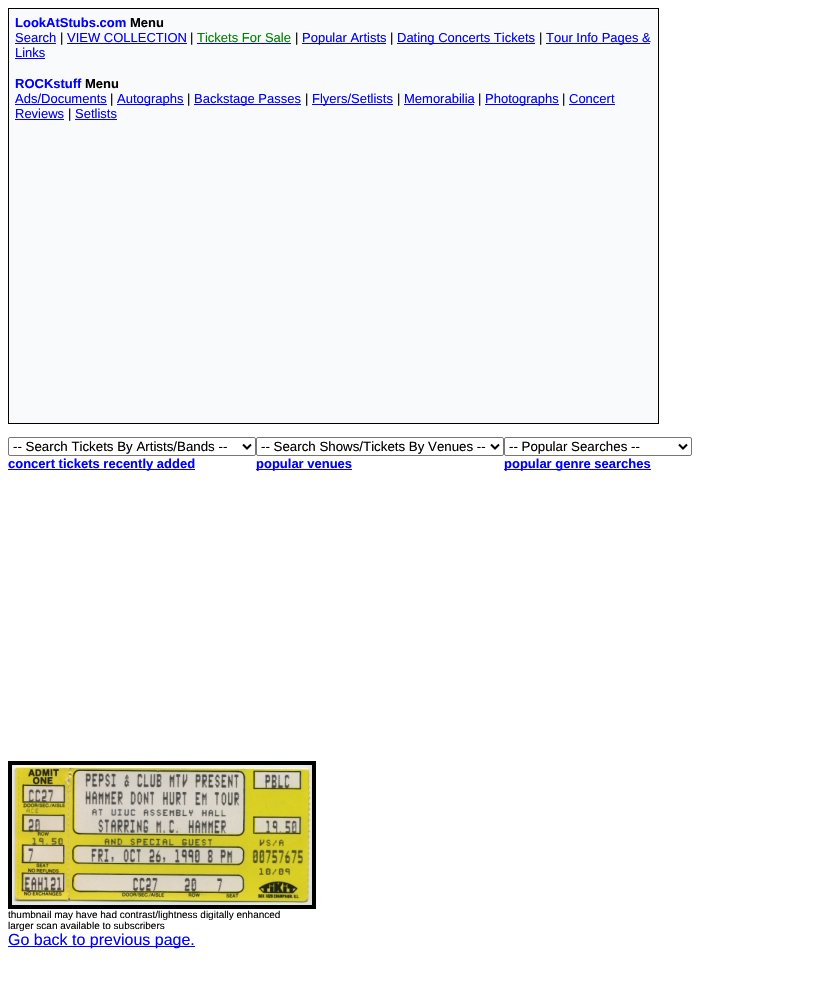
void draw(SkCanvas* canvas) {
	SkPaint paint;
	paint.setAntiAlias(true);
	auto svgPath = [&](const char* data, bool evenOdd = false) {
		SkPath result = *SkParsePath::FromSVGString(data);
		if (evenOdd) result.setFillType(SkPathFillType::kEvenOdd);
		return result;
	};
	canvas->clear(0xffffffff);
	paint.setColor(0xfff9fafb);
	canvas->drawRect(SkRect::MakeXYWH(8.5, 8.5, 650, 415), paint);
	paint.setStroke(true);
	paint.setStrokeWidth(1);
	paint.setColor(0xff000000);
	canvas->drawRect(SkRect::MakeXYWH(8.5, 8.5, 650, 415), paint);
	SkFont f1(fontMgr->matchFamilyStyle("Liberation Sans", SkFontStyle::Bold()), 13);
	f1.setSubpixel(true);
	paint.setStroke(false);
	paint.setColor(0xff0000ff);
	canvas->drawString("LookAtStubs.com", 15, 27, f1, paint);
	paint.setColor(0xff000000);
	canvas->drawString("Menu", 130, 27, f1, paint);
	SkFont f2(fontMgr->matchFamilyStyle("Liberation Sans", SkFontStyle::Normal()), 13);
	f2.setSubpixel(true);
	paint.setColor(0xff0000ff);
	canvas->drawString("Search", 15, 42, f2, paint);
	canvas->drawRect(SkRect::MakeXYWH(15, 43, 41, 1), paint);
	paint.setColor(0xff000000);
	canvas->drawString("|", 60, 42, f2, paint);
	paint.setColor(0xff0000ff);
	canvas->drawString("VIEW COLLECTION", 67, 42, f2, paint);
	canvas->drawRect(SkRect::MakeXYWH(67, 43, 120, 1), paint);
	paint.setColor(0xff000000);
	canvas->drawString("|", 190, 42, f2, paint);
	paint.setColor(0xff008000);
	canvas->drawString("Tickets For Sale", 197, 42, f2, paint);
	paint.setColor(0xff0000ff);
	canvas->drawRect(SkRect::MakeXYWH(197, 43, 94, 1), paint);
	paint.setColor(0xff000000);
	canvas->drawString("|", 295, 42, f2, paint);
	paint.setColor(0xff0000ff);
	canvas->drawRect(SkRect::MakeXYWH(302, 43, 84, 1), paint);
	canvas->drawString("Popular Artists", 302, 42, f2, paint);
	paint.setColor(0xff000000);
	canvas->drawString("|", 390, 42, f2, paint);
	paint.setColor(0xff0000ff);
	canvas->drawRect(SkRect::MakeXYWH(397, 43, 138, 1), paint);
	canvas->drawString("Dating Concerts Tickets", 397, 42, f2, paint);
	paint.setColor(0xff000000);
	canvas->drawString("|", 539, 42, f2, paint);
	paint.setColor(0xff0000ff);
	canvas->drawRect(SkRect::MakeXYWH(546, 43, 104, 1), paint);
	canvas->drawString("Tour Info Pages &", 546, 42, f2, paint);
	canvas->drawString("Links", 15, 57, f2, paint);
	canvas->drawRect(SkRect::MakeXYWH(15, 58, 30, 1), paint);
	canvas->drawString("ROCKstuff", 15, 88, f1, paint);
	paint.setColor(0xff000000);
	canvas->drawString("Menu", 85, 88, f1, paint);
	paint.setColor(0xff0000ff);
	canvas->drawString("Ads/Documents", 15, 103, f2, paint);
	canvas->drawRect(SkRect::MakeXYWH(15, 104, 92, 1), paint);
	paint.setColor(0xff000000);
	canvas->drawString("|", 110, 103, f2, paint);
	paint.setColor(0xff0000ff);
	canvas->drawRect(SkRect::MakeXYWH(117, 104, 67, 1), paint);
	canvas->drawString("Autographs", 117, 103, f2, paint);
	paint.setColor(0xff000000);
	canvas->drawString("|", 187, 103, f2, paint);
	paint.setColor(0xff0000ff);
	canvas->drawRect(SkRect::MakeXYWH(194, 104, 107, 1), paint);
	canvas->drawString("Backstage Passes", 194, 103, f2, paint);
	paint.setColor(0xff000000);
	canvas->drawString("|", 305, 103, f2, paint);
	paint.setColor(0xff0000ff);
	canvas->drawRect(SkRect::MakeXYWH(312, 104, 81, 1), paint);
	canvas->drawString("Flyers/Setlists", 312, 103, f2, paint);
	paint.setColor(0xff000000);
	canvas->drawString("|", 397, 103, f2, paint);
	paint.setColor(0xff0000ff);
	canvas->drawString("Memorabilia", 404, 103, f2, paint);
	canvas->drawRect(SkRect::MakeXYWH(404, 104, 70, 1), paint);
	paint.setColor(0xff000000);
	canvas->drawString("|", 478, 103, f2, paint);
	paint.setColor(0xff0000ff);
	canvas->drawRect(SkRect::MakeXYWH(485, 104, 74, 1), paint);
	canvas->drawString("Photographs", 485, 103, f2, paint);
	paint.setColor(0xff000000);
	canvas->drawString("|", 562, 103, f2, paint);
	paint.setColor(0xff0000ff);
	canvas->drawString("Concert", 569, 103, f2, paint);
	canvas->drawRect(SkRect::MakeXYWH(569, 104, 46, 1), paint);
	canvas->drawString("Reviews", 15, 118, f2, paint);
	canvas->drawRect(SkRect::MakeXYWH(15, 119, 49, 1), paint);
	paint.setColor(0xff000000);
	canvas->drawString("|", 68, 118, f2, paint);
	paint.setColor(0xff0000ff);
	canvas->drawString("Setlists", 75, 118, f2, paint);
	canvas->drawRect(SkRect::MakeXYWH(75, 119, 42, 1), paint);
	paint.setStroke(true);
	paint.setColor(0xff767676);
	canvas->drawRoundRect(SkRect::MakeXYWH(8.5, 437.5, 247, 18), 1.5, 1.5, paint);
	paint.setStrokeWidth(2);
	paint.setColor(0xff000000);
	canvas->drawPath(svgPath("M243 444.5L247 448.5L251 444.5"), paint);
	SkFont f3(fontMgr->matchFamilyStyle("Liberation Sans", SkFontStyle::Normal()), 13.3);
	f3.setSubpixel(true);
	paint.setStroke(false);
	canvas->drawString("-- Search Tickets By Artists/Bands --", 13, 451, f3, paint);
	paint.setColor(0xff0000ff);
	canvas->drawRect(SkRect::MakeXYWH(8, 469, 187, 1), paint);
	canvas->drawString("concert tickets recently added", 8, 468, f1, paint);
	paint.setStroke(true);
	paint.setStrokeWidth(1);
	paint.setColor(0xff767676);
	canvas->drawRoundRect(SkRect::MakeXYWH(256.5, 437.5, 247, 18), 1.5, 1.5, paint);
	paint.setStrokeWidth(2);
	paint.setColor(0xff000000);
	canvas->drawPath(svgPath("M491 444.5L495 448.5L499 444.5"), paint);
	paint.setStroke(false);
	canvas->drawString("-- Search Shows/Tickets By Venues --", 261, 451, f3, paint);
	paint.setColor(0xff0000ff);
	canvas->drawRect(SkRect::MakeXYWH(256, 469, 96, 1), paint);
	canvas->drawString("popular venues", 256, 468, f1, paint);
	paint.setStroke(true);
	paint.setStrokeWidth(1);
	paint.setColor(0xff767676);
	canvas->drawRoundRect(SkRect::MakeXYWH(504.5, 437.5, 187, 18), 1.5, 1.5, paint);
	paint.setStrokeWidth(2);
	paint.setColor(0xff000000);
	canvas->drawPath(svgPath("M679 444.5L683 448.5L687 444.5"), paint);
	paint.setStroke(false);
	canvas->drawString("-- Popular Searches --", 509, 451, f3, paint);
	paint.setColor(0xff0000ff);
	canvas->drawRect(SkRect::MakeXYWH(504, 469, 147, 1), paint);
	canvas->drawString("popular genre searches", 504, 468, f1, paint);
	paint.setStroke(true);
	paint.setStrokeWidth(4);
	paint.setColor(0xff000000);
	canvas->drawRect(SkRect::MakeXYWH(10, 763, 304, 144), paint);
	canvas->drawImageRect(SkImages::DeferredFromEncodedData(SkData::MakeFromFileName("img1.png")), SkRect::MakeXYWH(12, 765, 300, 140), SkSamplingOptions());
	SkFont f4(fontMgr->matchFamilyStyle("Liberation Sans", SkFontStyle::Normal()), 10);
	f4.setSubpixel(true);
	paint.setStroke(false);
	canvas->drawString("thumbnail may have had contrast/lightness digitally enhanced", 8, 918, f4, paint);
	canvas->drawString("larger scan available to subscribers", 8, 929, f4, paint);
	paint.setColor(0xff0000ff);
	canvas->drawRect(SkRect::MakeXYWH(8, 946, 187, 1), paint);
	SkFont f5(fontMgr->matchFamilyStyle("Liberation Sans", SkFontStyle::Normal()), 16);
	f5.setSubpixel(true);
	canvas->drawString("Go back to previous page.", 8, 945, f5, paint);
}
